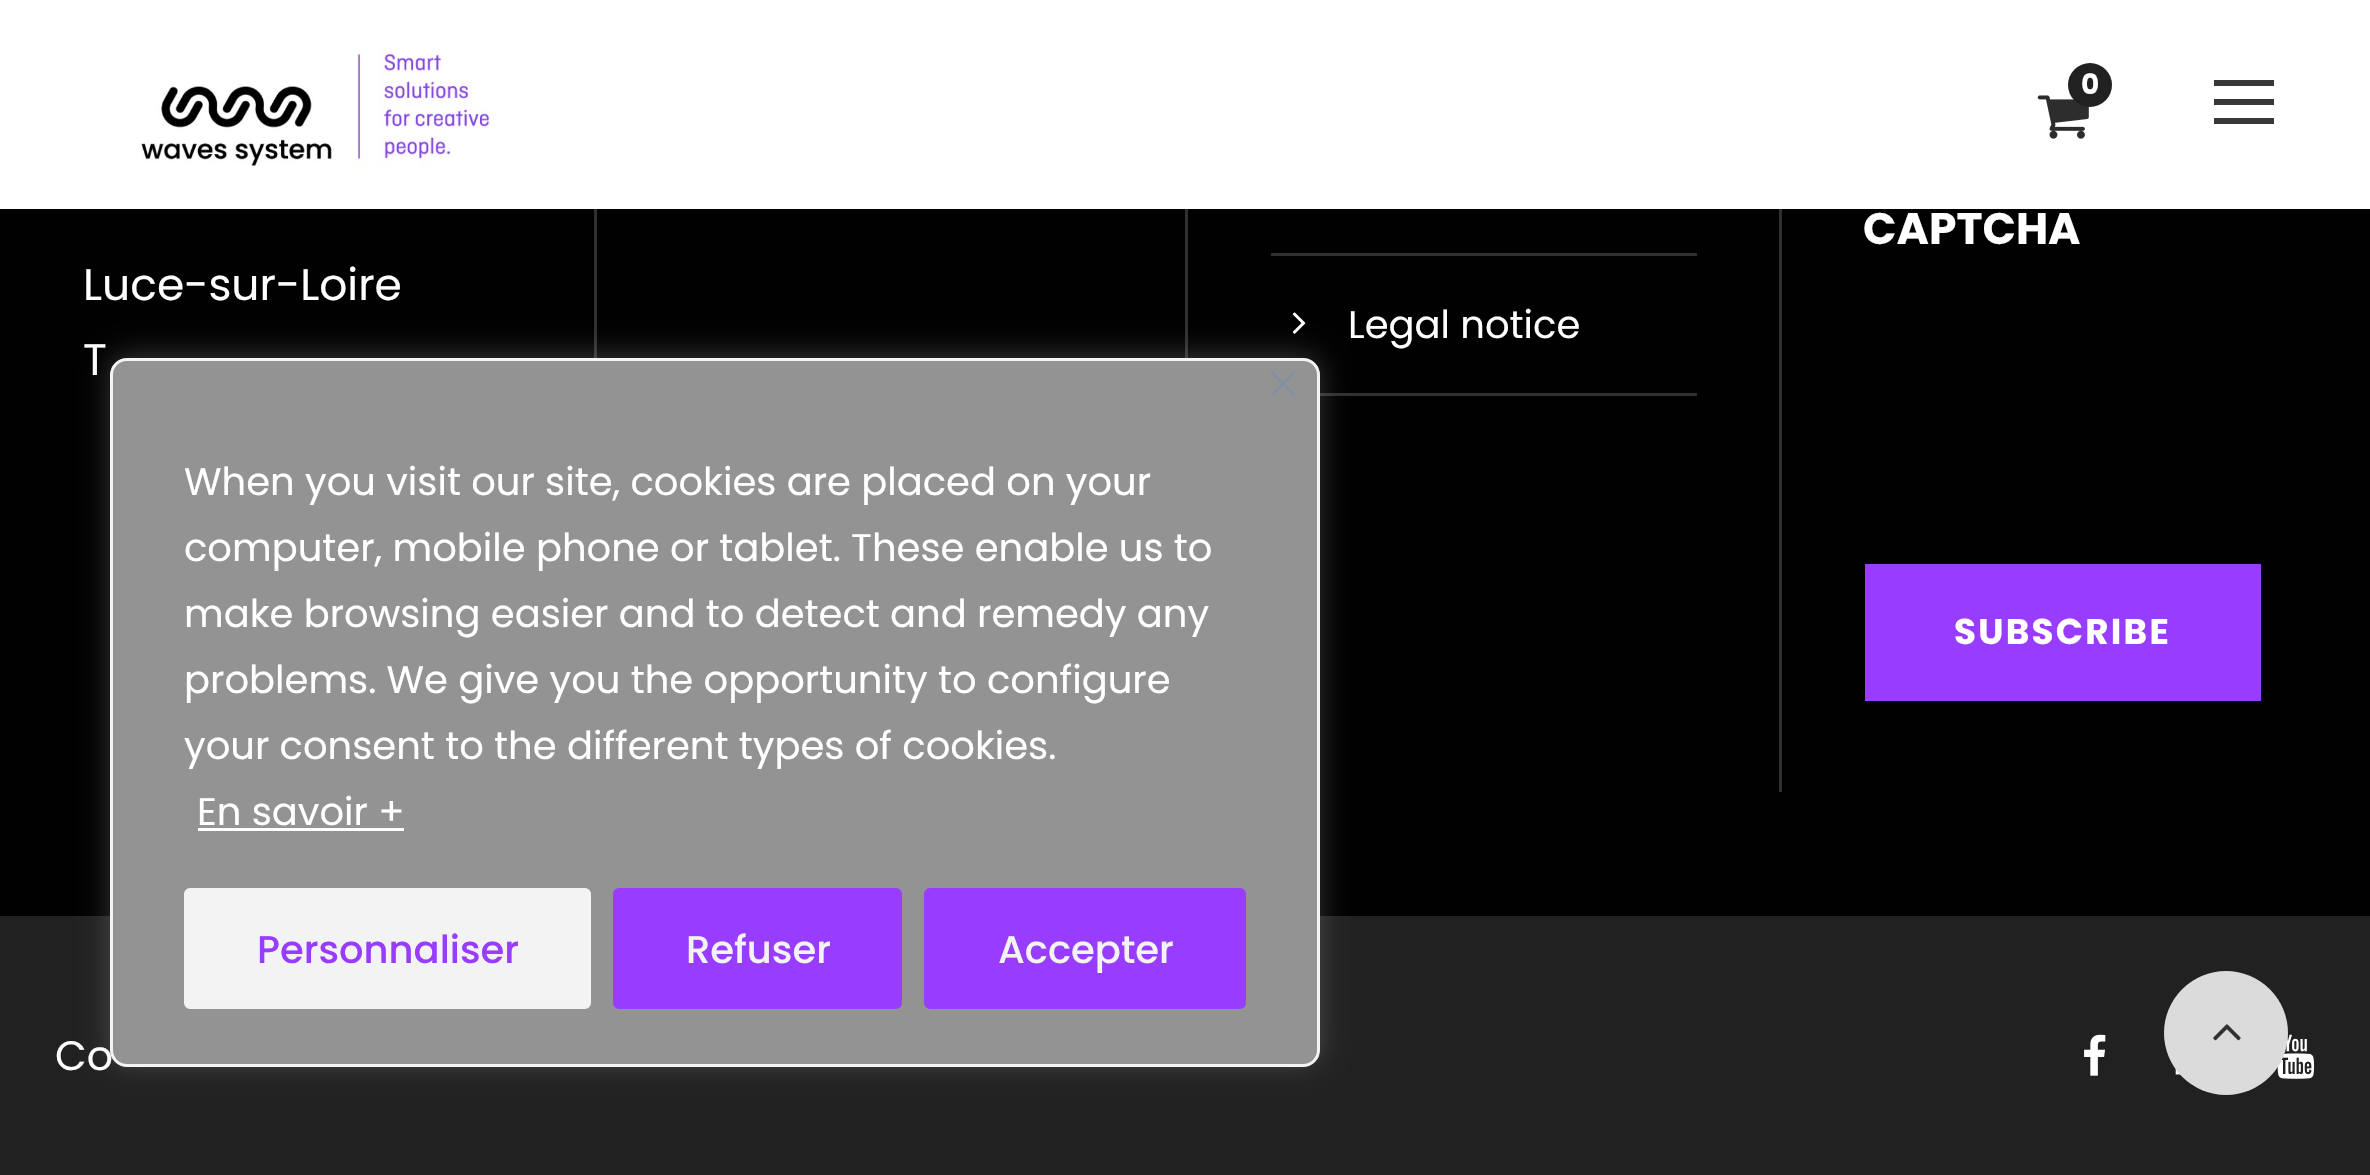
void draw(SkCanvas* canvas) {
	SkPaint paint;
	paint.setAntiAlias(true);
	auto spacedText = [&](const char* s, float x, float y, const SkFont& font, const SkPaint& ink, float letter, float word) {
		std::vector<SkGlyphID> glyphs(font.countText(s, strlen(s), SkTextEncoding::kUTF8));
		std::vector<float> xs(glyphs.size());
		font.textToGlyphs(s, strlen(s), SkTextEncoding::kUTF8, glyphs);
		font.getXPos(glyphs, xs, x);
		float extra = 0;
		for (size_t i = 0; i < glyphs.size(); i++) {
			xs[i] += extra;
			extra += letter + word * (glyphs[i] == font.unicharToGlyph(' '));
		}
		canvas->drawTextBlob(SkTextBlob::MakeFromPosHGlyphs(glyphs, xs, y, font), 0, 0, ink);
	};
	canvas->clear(0xff010101);
	paint.setColor(0xffffffff);
	canvas->drawRect(SkRect::MakeXYWH(0, 0, 2370, 209), paint);
	canvas->drawImageRect(SkImages::DeferredFromEncodedData(SkData::MakeFromFileName("img1.png")), SkRect::MakeXYWH(141, 47, 349, 120), SkSamplingOptions());
	canvas->drawImageRect(SkImages::DeferredFromEncodedData(SkData::MakeFromFileName("img2.png")), SkRect::MakeXYWH(2037, 95, 52, 44), SkSamplingOptions());
	paint.setColor(0xff212121);
	canvas->drawCircle(2090, 85, 22, paint);
	SkFont f1(fontMgr->matchFamilyStyle("Poppins", SkFontStyle::Bold()), 28);
	f1.setSubpixel(true);
	paint.setColor(0xffffffff);
	canvas->drawString("0", 2081, 94, f1, paint);
	paint.setColor(0xff383838);
	canvas->drawRect(SkRect::MakeXYWH(2214, 80, 60, 6), paint);
	canvas->drawRect(SkRect::MakeXYWH(2214, 99, 60, 6), paint);
	canvas->drawRect(SkRect::MakeXYWH(2214, 118, 60, 6), paint);
	SkFont f2(fontMgr->matchFamilyStyle("Poppins", SkFontStyle::Normal()), 44);
	f2.setSubpixel(true);
	paint.setColor(0xffffffff);
	canvas->drawString("Luce-sur-Loire", 83, 300, f2, paint);
	canvas->drawString("T", 83, 375, f2, paint);
	paint.setColor(0xff303030);
	canvas->drawRect(SkRect::MakeXYWH(594, 209, 3, 149), paint);
	canvas->drawRect(SkRect::MakeXYWH(1185, 209, 3, 149), paint);
	canvas->drawRect(SkRect::MakeXYWH(1271, 253, 426, 3), paint);
	canvas->drawRect(SkRect::MakeXYWH(1320, 393, 377, 3), paint);
	canvas->drawImageRect(SkImages::DeferredFromEncodedData(SkData::MakeFromFileName("img3.png")), SkRect::MakeXYWH(1292, 312, 14, 22), SkSamplingOptions());
	SkFont f3(fontMgr->matchFamilyStyle("Poppins", SkFontStyle::Normal()), 38.5);
	f3.setSubpixel(true);
	paint.setColor(0xffffffff);
	canvas->drawString("Legal notice", 1348, 338, f3, paint);
	paint.setColor(0xff303030);
	canvas->drawRect(SkRect::MakeXYWH(1779, 209, 3, 583), paint);
	SkFont f4(fontMgr->matchFamilyStyle("Poppins", SkFontStyle::Bold()), 44);
	f4.setSubpixel(true);
	paint.setColor(0xffffffff);
	canvas->drawString("CAPTCHA", 1863, 244, f4, paint);
	paint.setColor(0xff983cff);
	canvas->drawRect(SkRect::MakeXYWH(1865, 564, 396, 137), paint);
	SkFont f5(fontMgr->matchFamilyStyle("Poppins", SkFontStyle::Bold()), 35.75);
	f5.setSubpixel(true);
	paint.setColor(0xffffffff);
	spacedText("SUBSCRIBE", 1954, 644, f5, paint, 2.25, 0);
	paint.setColor(0xff212121);
	canvas->drawRect(SkRect::MakeXYWH(0, 916, 2370, 259), paint);
	SkFont f6(fontMgr->matchFamilyStyle("Poppins", SkFontStyle::Normal()), 41);
	f6.setSubpixel(true);
	paint.setColor(0xffffffff);
	canvas->drawString("Co", 55, 1070, f6, paint);
	canvas->drawImageRect(SkImages::DeferredFromEncodedData(SkData::MakeFromFileName("img4.png")), SkRect::MakeXYWH(2084, 1034, 22, 42), SkSamplingOptions());
	canvas->drawImageRect(SkImages::DeferredFromEncodedData(SkData::MakeFromFileName("img5.png")), SkRect::MakeXYWH(2175, 1068, 6, 7), SkSamplingOptions());
	canvas->drawImageRect(SkImages::DeferredFromEncodedData(SkData::MakeFromFileName("img6.png")), SkRect::MakeXYWH(2277, 1034, 38, 45), SkSamplingOptions());
	paint.setColor(0x4dacabab);
	paint.setMaskFilter(SkMaskFilter::MakeBlur(kNormal_SkBlurStyle, 14));
	canvas->drawRoundRect(SkRect::MakeXYWH(110, 355, 1210, 709), 17, 17, paint);
	paint.setMaskFilter(nullptr);
	paint.setColor(0xff939393);
	canvas->drawRoundRect(SkRect::MakeXYWH(111.5, 359.5, 1207, 706), 15.5, 15.5, paint);
	paint.setStroke(true);
	paint.setStrokeWidth(3);
	paint.setColor(0xfff4f4f4);
	canvas->drawRoundRect(SkRect::MakeXYWH(111.5, 359.5, 1207, 706), 15.5, 15.5, paint);
	canvas->drawImageRect(SkImages::DeferredFromEncodedData(SkData::MakeFromFileName("img7.png")), SkRect::MakeXYWH(1271, 371, 24, 25), SkSamplingOptions());
	paint.setStroke(false);
	paint.setColor(0xffffffff);
	canvas->drawString("When you visit our site, cookies are placed on your", 184, 495, f3, paint);
	canvas->drawString("computer, mobile phone or tablet. These enable us to", 184, 561, f3, paint);
	canvas->drawString("make browsing easier and to detect and remedy any", 184, 627, f3, paint);
	canvas->drawString("problems. We give you the opportunity to configure", 184, 693, f3, paint);
	canvas->drawString("your consent to the different types of cookies.", 184, 759, f3, paint);
	canvas->drawString("En savoir +", 197, 825, f3, paint);
	canvas->drawRect(SkRect::MakeXYWH(198, 828, 206, 3), paint);
	paint.setColor(0xfff3f3f3);
	canvas->drawRoundRect(SkRect::MakeXYWH(187, 891, 401, 115), 3, 3, paint);
	paint.setStroke(true);
	paint.setStrokeWidth(6);
	canvas->drawRoundRect(SkRect::MakeXYWH(187, 891, 401, 115), 3, 3, paint);
	SkFont f7(fontMgr->matchFamilyStyle("Poppins", SkFontStyle(500, SkFontStyle::kNormal_Width, SkFontStyle::kUpright_Slant)), 38.5);
	f7.setSubpixel(true);
	paint.setStroke(false);
	paint.setColor(0xff983cff);
	canvas->drawString("Personnaliser", 257, 963, f7, paint);
	canvas->drawRoundRect(SkRect::MakeXYWH(616, 891, 283, 115), 3, 3, paint);
	paint.setStroke(true);
	canvas->drawRoundRect(SkRect::MakeXYWH(616, 891, 283, 115), 3, 3, paint);
	paint.setStroke(false);
	paint.setColor(0xfff3f3f3);
	canvas->drawString("Refuser", 686, 963, f7, paint);
	paint.setColor(0xff983cff);
	canvas->drawRoundRect(SkRect::MakeXYWH(927, 891, 316, 115), 3, 3, paint);
	paint.setStroke(true);
	canvas->drawRoundRect(SkRect::MakeXYWH(927, 891, 316, 115), 3, 3, paint);
	paint.setStroke(false);
	paint.setColor(0xfff3f3f3);
	canvas->drawString("Accepter", 998, 963, f7, paint);
	paint.setColor(0xffdbdbdb);
	canvas->drawCircle(2226, 1033, 62, paint);
	canvas->drawImageRect(SkImages::DeferredFromEncodedData(SkData::MakeFromFileName("img8.png")), SkRect::MakeXYWH(2213, 1024, 28, 17), SkSamplingOptions());
}
